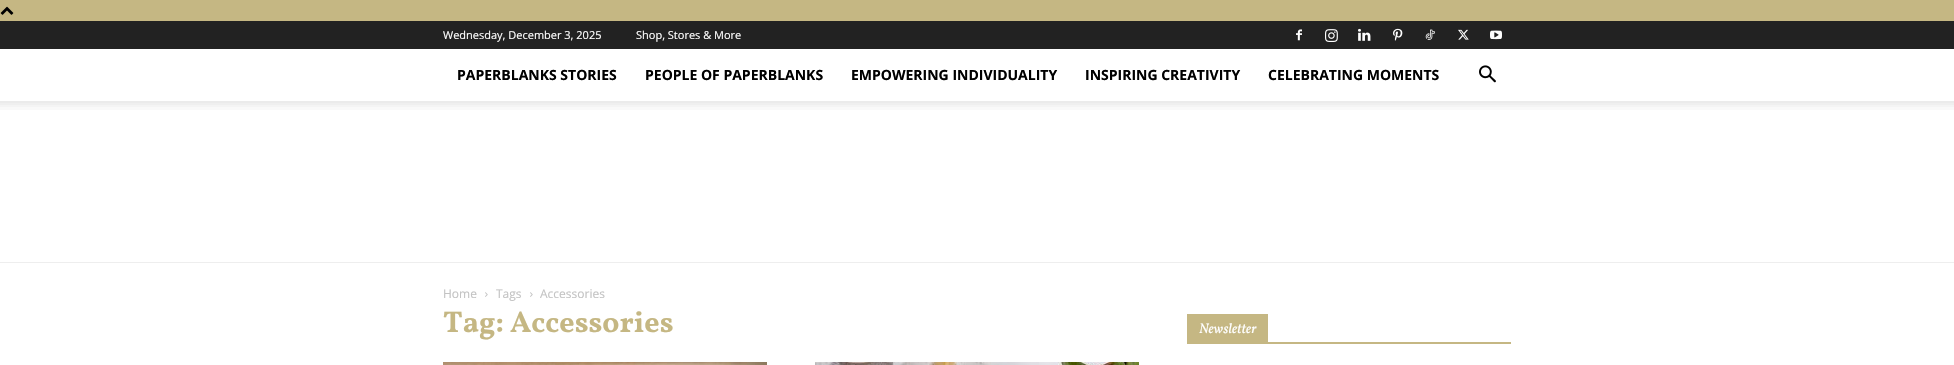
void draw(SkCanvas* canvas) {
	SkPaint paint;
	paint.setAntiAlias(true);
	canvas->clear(0xffffffff);
	paint.setColor(0xffc5b783);
	canvas->drawRect(SkRect::MakeXYWH(0, 0, 1954, 21), paint);
	canvas->drawImageRect(SkImages::DeferredFromEncodedData(SkData::MakeFromFileName("img1.png")), SkRect::MakeXYWH(0, 6, 14, 9), SkSamplingOptions());
	paint.setColor(0xff222222);
	canvas->drawRect(SkRect::MakeXYWH(0, 21, 1954, 28), paint);
	SkFont f1(fontMgr->matchFamilyStyle("Open Sans", SkFontStyle::Normal()), 11);
	f1.setSubpixel(true);
	paint.setColor(0xffffffff);
	canvas->drawString("Wednesday, December 3, 2025", 443, 39, f1, paint);
	canvas->drawString("Shop, Stores & More", 636, 39, f1, paint);
	canvas->drawImageRect(SkImages::DeferredFromEncodedData(SkData::MakeFromFileName("img2.png")), SkRect::MakeXYWH(1296, 29, 6, 12), SkSamplingOptions());
	canvas->drawImageRect(SkImages::DeferredFromEncodedData(SkData::MakeFromFileName("img3.png")), SkRect::MakeXYWH(1325, 29, 13, 13), SkSamplingOptions());
	canvas->drawImageRect(SkImages::DeferredFromEncodedData(SkData::MakeFromFileName("img4.png")), SkRect::MakeXYWH(1358, 28, 13, 13), SkSamplingOptions());
	canvas->drawImageRect(SkImages::DeferredFromEncodedData(SkData::MakeFromFileName("img5.png")), SkRect::MakeXYWH(1393, 28, 10, 13), SkSamplingOptions());
	canvas->drawImageRect(SkImages::DeferredFromEncodedData(SkData::MakeFromFileName("img6.png")), SkRect::MakeXYWH(1425, 29, 10, 11), SkSamplingOptions());
	canvas->drawImageRect(SkImages::DeferredFromEncodedData(SkData::MakeFromFileName("img7.png")), SkRect::MakeXYWH(1458, 29, 11, 11), SkSamplingOptions());
	canvas->drawImageRect(SkImages::DeferredFromEncodedData(SkData::MakeFromFileName("img8.png")), SkRect::MakeXYWH(1490, 30, 12, 10), SkSamplingOptions());
	SkFont f2(fontMgr->matchFamilyStyle("Open Sans", SkFontStyle::Bold()), 14);
	f2.setSubpixel(true);
	paint.setColor(0xff000000);
	canvas->drawString("PAPERBLANKS STORIES", 457, 80, f2, paint);
	canvas->drawString("PEOPLE OF PAPERBLANKS", 645, 80, f2, paint);
	canvas->drawString("EMPOWERING INDIVIDUALITY", 851, 80, f2, paint);
	canvas->drawString("INSPIRING CREATIVITY", 1085, 80, f2, paint);
	canvas->drawString("CELEBRATING MOMENTS", 1268, 80, f2, paint);
	canvas->drawImageRect(SkImages::DeferredFromEncodedData(SkData::MakeFromFileName("img9.png")), SkRect::MakeXYWH(1479, 65, 17, 18), SkSamplingOptions());
	canvas->drawImageRect(SkImages::DeferredFromEncodedData(SkData::MakeFromFileName("img10.png")), SkRect::MakeXYWH(0, 101, 1954, 9), SkSamplingOptions());
	paint.setColor(0xffeeeeee);
	canvas->drawRect(SkRect::MakeXYWH(0, 262, 1954, 1), paint);
	SkFont f3(fontMgr->matchFamilyStyle("Open Sans", SkFontStyle::Normal()), 12);
	f3.setSubpixel(true);
	paint.setColor(0xffc3c3c3);
	canvas->drawString("Home", 443, 298, f3, paint);
	canvas->drawImageRect(SkImages::DeferredFromEncodedData(SkData::MakeFromFileName("img11.png")), SkRect::MakeXYWH(485, 292, 3, 5), SkSamplingOptions());
	canvas->drawString("Tags", 496, 298, f3, paint);
	canvas->drawImageRect(SkImages::DeferredFromEncodedData(SkData::MakeFromFileName("img11.png")), SkRect::MakeXYWH(530, 292, 3, 5), SkSamplingOptions());
	canvas->drawString("Accessories", 540, 298, f3, paint);
	SkFont f4(fontMgr->matchFamilyStyle("Vollkorn", SkFontStyle::Bold()), 30);
	f4.setSubpixel(true);
	paint.setColor(0xffc5b783);
	canvas->drawString("Tag: Accessories", 443, 332, f4, paint);
	canvas->drawImageRect(SkImages::DeferredFromEncodedData(SkData::MakeFromFileName("img12.png")), SkRect::MakeXYWH(443, 362, 324, 3), SkSamplingOptions());
	canvas->drawImageRect(SkImages::DeferredFromEncodedData(SkData::MakeFromFileName("img13.png")), SkRect::MakeXYWH(815, 362, 324, 3), SkSamplingOptions());
	canvas->drawRect(SkRect::MakeXYWH(1187, 342, 324, 2), paint);
	canvas->drawRect(SkRect::MakeXYWH(1187, 314, 81, 28), paint);
	SkFont f5(fontMgr->matchFamilyStyle("Vollkorn", SkFontStyle::Italic()), 14);
	f5.setSubpixel(true);
	paint.setColor(0xffffffff);
	canvas->drawString("Newsletter", 1199, 333, f5, paint);
}
